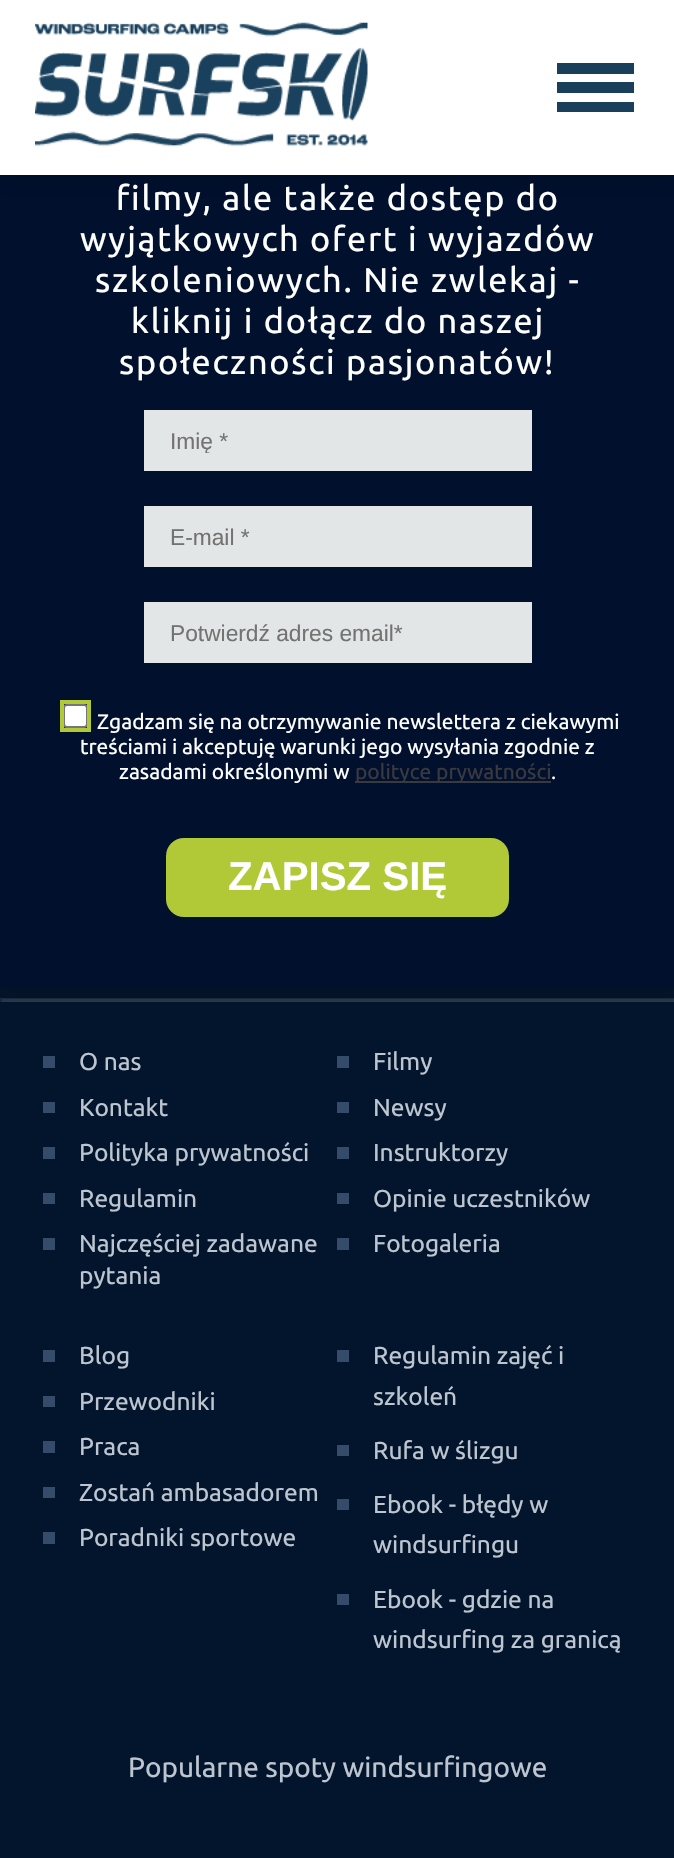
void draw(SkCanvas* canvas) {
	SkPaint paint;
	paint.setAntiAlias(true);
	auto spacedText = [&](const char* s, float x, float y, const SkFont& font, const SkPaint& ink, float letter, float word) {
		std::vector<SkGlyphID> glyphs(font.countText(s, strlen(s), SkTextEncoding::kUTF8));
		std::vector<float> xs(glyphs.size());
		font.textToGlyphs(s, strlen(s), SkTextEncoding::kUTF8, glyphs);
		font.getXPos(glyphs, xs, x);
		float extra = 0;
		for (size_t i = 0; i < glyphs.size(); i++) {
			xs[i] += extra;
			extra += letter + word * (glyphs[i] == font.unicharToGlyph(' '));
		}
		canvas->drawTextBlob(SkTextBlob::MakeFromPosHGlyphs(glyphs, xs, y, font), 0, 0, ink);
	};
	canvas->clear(0xff03152c);
	paint.setColor(0x61000000);
	paint.setMaskFilter(SkMaskFilter::MakeBlur(kNormal_SkBlurStyle, 9.5));
	canvas->drawRect(SkRect::MakeXYWH(0, -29, 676, 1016), paint);
	paint.setMaskFilter(nullptr);
	paint.setColor(0xff00102d);
	canvas->drawRect(SkRect::MakeXYWH(0, 175, 674, 812), paint);
	paint.setColor(0x33000000);
	paint.setMaskFilter(SkMaskFilter::MakeBlur(kNormal_SkBlurStyle, 13));
	canvas->drawRect(SkRect::MakeXYWH(0, 0, 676, 175), paint);
	paint.setMaskFilter(nullptr);
	paint.setColor(0xffffffff);
	canvas->drawRect(SkRect::MakeXYWH(0, 0, 674, 175), paint);
	canvas->drawImageRect(SkImages::DeferredFromEncodedData(SkData::MakeFromFileName("img1.png")), SkRect::MakeXYWH(35, 22, 333, 125), SkSamplingOptions());
	paint.setColor(0xff193f5b);
	canvas->drawRect(SkRect::MakeXYWH(557, 63, 77, 11), paint);
	canvas->drawRect(SkRect::MakeXYWH(557, 82, 77, 11), paint);
	canvas->drawRect(SkRect::MakeXYWH(557, 102, 77, 10), paint);
	SkFont f1(fontMgr->matchFamilyStyle("Ubuntu", SkFontStyle::Normal()), 34.25);
	f1.setSubpixel(true);
	paint.setColor(0xffffffff);
	spacedText("filmy, ale także dostęp do", 116, 210, f1, paint, 1.75, 0);
	spacedText("wyjątkowych ofert i wyjazdów", 80, 251, f1, paint, 1.75, 0);
	spacedText("szkoleniowych. Nie zwlekaj -", 95, 292, f1, paint, 1.75, 0);
	spacedText("kliknij i dołącz do naszej", 131, 333, f1, paint, 1.75, 0);
	spacedText("społeczności pasjonatów!", 119, 374, f1, paint, 1.75, 0);
	paint.setColor(0xffe3e6e6);
	canvas->drawRect(SkRect::MakeXYWH(144, 410, 388, 61), paint);
	canvas->save();
	canvas->clipRect(SkRect::MakeXYWH(170, 427, 336, 26));
	SkFont f2(fontMgr->matchFamilyStyle("Liberation Sans", SkFontStyle::Normal()), 22.75);
	f2.setSubpixel(true);
	paint.setColor(0xff737373);
	canvas->drawString("Imię *", 170, 449, f2, paint);
	canvas->restore();
	paint.setColor(0xffe3e6e6);
	canvas->drawRect(SkRect::MakeXYWH(144, 506, 388, 61), paint);
	paint.setColor(0xff737373);
	canvas->drawString("E-mail *", 170, 545, f2, paint);
	paint.setColor(0xffe3e6e6);
	canvas->drawRect(SkRect::MakeXYWH(144, 602, 388, 61), paint);
	paint.setColor(0xff737373);
	canvas->drawString("Potwierdź adres email*", 170, 641, f2, paint);
	paint.setColor(0xffffffff);
	canvas->drawRoundRect(SkRect::MakeXYWH(64, 705, 23, 22), 3, 3, paint);
	paint.setStroke(true);
	paint.setStrokeWidth(2);
	paint.setColor(0xff767676);
	canvas->drawRoundRect(SkRect::MakeXYWH(64, 705, 23, 22), 3, 3, paint);
	paint.setStrokeWidth(4);
	paint.setColor(0xffb2c937);
	canvas->drawRect(SkRect::MakeXYWH(62, 702, 27, 28), paint);
	SkFont f3(fontMgr->matchFamilyStyle("Ubuntu", SkFontStyle::Normal()), 21);
	f3.setSubpixel(true);
	paint.setStroke(false);
	paint.setColor(0xffffffff);
	canvas->drawString("Zgadzam się na otrzymywanie newslettera z ciekawymi", 97, 729, f3, paint);
	canvas->drawString("treściami i akceptuję warunki jego wysyłania zgodnie z", 80, 754, f3, paint);
	canvas->drawString("zasadami określonymi w", 119, 779, f3, paint);
	paint.setColor(0xff39393e);
	canvas->drawRect(SkRect::MakeXYWH(355, 781, 196, 2), paint);
	canvas->drawString("polityce prywatności", 355, 779, f3, paint);
	paint.setColor(0xffffffff);
	canvas->drawString(".", 551, 779, f3, paint);
	paint.setColor(0xffb2c937);
	canvas->drawRoundRect(SkRect::MakeXYWH(166, 838, 343, 79), 18, 18, paint);
	SkFont f4(fontMgr->matchFamilyStyle("Liberation Sans", SkFontStyle::Bold()), 40.25);
	f4.setSubpixel(true);
	paint.setColor(0xffffffff);
	canvas->drawString("ZAPISZ SIĘ", 228, 890, f4, paint);
	paint.setColor(0xff29384a);
	canvas->drawRect(SkRect::MakeXYWH(0, 1001, 674, 1), paint);
	paint.setColor(0xff1a293c);
	canvas->drawRect(SkRect::MakeXYWH(0, 998, 674, 1), paint);
	paint.setColor(0xff263548);
	canvas->drawRect(SkRect::MakeXYWH(0, 999, 674, 2), paint);
	paint.setColor(0xff1a293d);
	canvas->drawRect(SkRect::MakeXYWH(0, 998, 2, 4), paint);
	paint.setColor(0xff344b6a);
	canvas->drawRect(SkRect::MakeXYWH(43, 1056, 12, 12), paint);
	SkFont f5(fontMgr->matchFamilyStyle("Ubuntu", SkFontStyle::Normal()), 24.5);
	f5.setSubpixel(true);
	paint.setColor(0xffbdc5d0);
	canvas->drawString("O nas", 79, 1070, f5, paint);
	paint.setColor(0xff344b6a);
	canvas->drawRect(SkRect::MakeXYWH(43, 1102, 12, 11), paint);
	paint.setColor(0xffbdc5d0);
	canvas->drawString("Kontakt", 79, 1116, f5, paint);
	paint.setColor(0xff344b6a);
	canvas->drawRect(SkRect::MakeXYWH(43, 1147, 12, 12), paint);
	paint.setColor(0xffbdc5d0);
	canvas->drawString("Polityka prywatności", 79, 1161, f5, paint);
	paint.setColor(0xff344b6a);
	canvas->drawRect(SkRect::MakeXYWH(43, 1193, 12, 11), paint);
	paint.setColor(0xffbdc5d0);
	canvas->drawString("Regulamin", 79, 1207, f5, paint);
	paint.setColor(0xff344b6a);
	canvas->drawRect(SkRect::MakeXYWH(43, 1238, 12, 12), paint);
	paint.setColor(0xffbdc5d0);
	canvas->drawString("Najczęściej zadawane", 79, 1252, f5, paint);
	canvas->drawString("pytania", 79, 1284, f5, paint);
	paint.setColor(0xff344b6a);
	canvas->drawRect(SkRect::MakeXYWH(337, 1056, 12, 12), paint);
	paint.setColor(0xffbdc5d0);
	canvas->drawString("Filmy", 373, 1070, f5, paint);
	paint.setColor(0xff344b6a);
	canvas->drawRect(SkRect::MakeXYWH(337, 1102, 12, 11), paint);
	paint.setColor(0xffbdc5d0);
	canvas->drawString("Newsy", 373, 1116, f5, paint);
	paint.setColor(0xff344b6a);
	canvas->drawRect(SkRect::MakeXYWH(337, 1147, 12, 12), paint);
	paint.setColor(0xffbdc5d0);
	canvas->drawString("Instruktorzy", 373, 1161, f5, paint);
	paint.setColor(0xff344b6a);
	canvas->drawRect(SkRect::MakeXYWH(337, 1193, 12, 11), paint);
	paint.setColor(0xffbdc5d0);
	canvas->drawString("Opinie uczestników", 373, 1207, f5, paint);
	paint.setColor(0xff344b6a);
	canvas->drawRect(SkRect::MakeXYWH(337, 1238, 12, 12), paint);
	paint.setColor(0xffbdc5d0);
	canvas->drawString("Fotogaleria", 373, 1252, f5, paint);
	paint.setColor(0xff344b6a);
	canvas->drawRect(SkRect::MakeXYWH(43, 1350, 12, 12), paint);
	paint.setColor(0xffbdc5d0);
	canvas->drawString("Blog", 79, 1364, f5, paint);
	paint.setColor(0xff344b6a);
	canvas->drawRect(SkRect::MakeXYWH(43, 1396, 12, 11), paint);
	paint.setColor(0xffbdc5d0);
	canvas->drawString("Przewodniki", 79, 1410, f5, paint);
	paint.setColor(0xff344b6a);
	canvas->drawRect(SkRect::MakeXYWH(43, 1441, 12, 12), paint);
	paint.setColor(0xffbdc5d0);
	canvas->drawString("Praca", 79, 1455, f5, paint);
	paint.setColor(0xff344b6a);
	canvas->drawRect(SkRect::MakeXYWH(43, 1487, 12, 11), paint);
	paint.setColor(0xffbdc5d0);
	canvas->drawString("Zostań ambasadorem", 79, 1501, f5, paint);
	paint.setColor(0xff344b6a);
	canvas->drawRect(SkRect::MakeXYWH(43, 1532, 12, 12), paint);
	paint.setColor(0xffbdc5d0);
	canvas->drawString("Poradniki sportowe", 79, 1546, f5, paint);
	paint.setColor(0xff344b6a);
	canvas->drawRect(SkRect::MakeXYWH(337, 1350, 12, 12), paint);
	paint.setColor(0xffbdc5d0);
	canvas->drawString("Regulamin zajęć i", 373, 1364, f5, paint);
	canvas->drawString("szkoleń", 373, 1405, f5, paint);
	paint.setColor(0xff344b6a);
	canvas->drawRect(SkRect::MakeXYWH(337, 1445, 12, 11), paint);
	paint.setColor(0xffbdc5d0);
	canvas->drawString("Rufa w ślizgu", 373, 1459, f5, paint);
	paint.setColor(0xff344b6a);
	canvas->drawRect(SkRect::MakeXYWH(337, 1499, 12, 11), paint);
	paint.setColor(0xffbdc5d0);
	canvas->drawString("Ebook - błędy w", 373, 1513, f5, paint);
	canvas->drawString("windsurfingu", 373, 1553, f5, paint);
	paint.setColor(0xff344b6a);
	canvas->drawRect(SkRect::MakeXYWH(337, 1594, 12, 11), paint);
	paint.setColor(0xffbdc5d0);
	canvas->drawString("Ebook - gdzie na", 373, 1608, f5, paint);
	canvas->drawString("windsurfing za granicą", 373, 1648, f5, paint);
	SkFont f6(fontMgr->matchFamilyStyle("Ubuntu", SkFontStyle::Normal()), 28);
	f6.setSubpixel(true);
	canvas->drawString("Popularne spoty windsurfingowe", 128, 1777, f6, paint);
}
